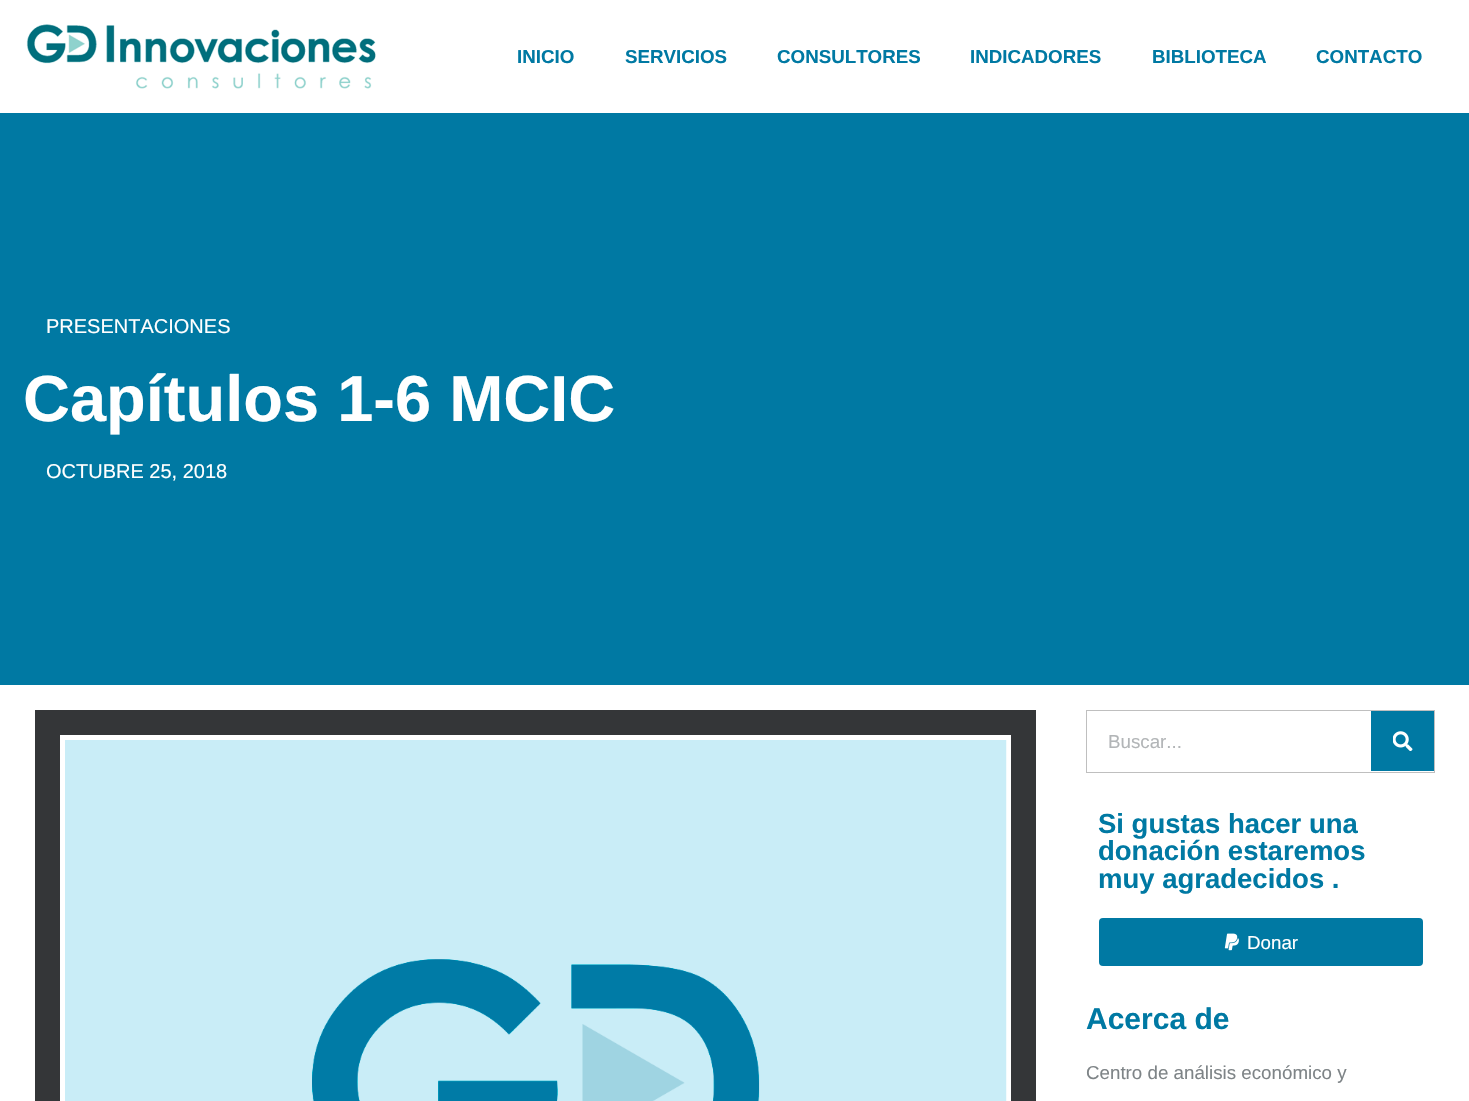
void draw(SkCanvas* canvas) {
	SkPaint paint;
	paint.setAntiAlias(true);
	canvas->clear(0xffffffff);
	canvas->drawImageRect(SkImages::DeferredFromEncodedData(SkData::MakeFromFileName("img1.png")), SkRect::MakeXYWH(26, 24, 350, 65), SkSamplingOptions());
	SkFont f1(fontMgr->matchFamilyStyle("Liberation Sans", SkFontStyle::Bold()), 18.75);
	f1.setSubpixel(true);
	paint.setColor(0xff0079a3);
	canvas->drawString("INICIO", 517, 63, f1, paint);
	canvas->drawString("SERVICIOS", 625, 63, f1, paint);
	canvas->drawString("CONSULTORES", 777, 63, f1, paint);
	canvas->drawString("INDICADORES", 970, 63, f1, paint);
	canvas->drawString("BIBLIOTECA", 1152, 63, f1, paint);
	canvas->drawString("CONTACTO", 1316, 63, f1, paint);
	canvas->drawRect(SkRect::MakeXYWH(0, 113, 1469, 572), paint);
	SkFont f2(fontMgr->matchFamilyStyle("Liberation Sans", SkFontStyle::Normal()), 20);
	f2.setSubpixel(true);
	paint.setColor(0xffffffff);
	canvas->drawString("PRESENTACIONES", 46, 333, f2, paint);
	SkFont f3(fontMgr->matchFamilyStyle("Liberation Sans", SkFontStyle::Bold()), 65);
	f3.setSubpixel(true);
	canvas->drawString("Capítulos 1-6 MCIC", 23, 421, f3, paint);
	canvas->drawString("OCTUBRE 25, 2018", 46, 478, f2, paint);
	paint.setStroke(true);
	paint.setStrokeWidth(25);
	paint.setColor(0xff343638);
	canvas->drawRect(SkRect::MakeXYWH(47.5, 722.5, 976, 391), paint);
	canvas->drawImageRect(SkImages::DeferredFromEncodedData(SkData::MakeFromFileName("img2.png")), SkRect::MakeXYWH(65, 740, 942, 361), SkSamplingOptions());
	paint.setStrokeWidth(1);
	paint.setColor(0xffbfbfbf);
	canvas->drawRect(SkRect::MakeXYWH(1086.5, 710.5, 348, 62), paint);
	SkFont f4(fontMgr->matchFamilyStyle("Liberation Sans", SkFontStyle::Normal()), 18.75);
	f4.setSubpixel(true);
	paint.setStroke(false);
	paint.setColor(0xffb2b5b7);
	canvas->drawString("Buscar...", 1108, 748, f4, paint);
	paint.setColor(0xff0079a3);
	canvas->drawRect(SkRect::MakeXYWH(1371, 711, 63, 60), paint);
	canvas->drawImageRect(SkImages::DeferredFromEncodedData(SkData::MakeFromFileName("img3.png")), SkRect::MakeXYWH(1393, 731, 20, 20), SkSamplingOptions());
	SkFont f5(fontMgr->matchFamilyStyle("Liberation Sans", SkFontStyle::Bold()), 27.5);
	f5.setSubpixel(true);
	canvas->drawString("Si gustas hacer una", 1098, 833, f5, paint);
	canvas->drawString("donación estaremos", 1098, 860, f5, paint);
	canvas->drawString("muy agradecidos .", 1098, 888, f5, paint);
	canvas->drawRoundRect(SkRect::MakeXYWH(1099, 918, 324, 48), 4, 4, paint);
	canvas->drawImageRect(SkImages::DeferredFromEncodedData(SkData::MakeFromFileName("img4.png")), SkRect::MakeXYWH(1224, 933, 15, 18), SkSamplingOptions());
	paint.setColor(0xffffffff);
	canvas->drawString("Donar", 1247, 949, f4, paint);
	SkFont f6(fontMgr->matchFamilyStyle("Liberation Sans", SkFontStyle::Bold()), 30);
	f6.setSubpixel(true);
	paint.setColor(0xff0079a3);
	canvas->drawString("Acerca de", 1086, 1029, f6, paint);
	paint.setColor(0xff7e8487);
	canvas->drawString("Centro de análisis económico y", 1086, 1079, f4, paint);
}
